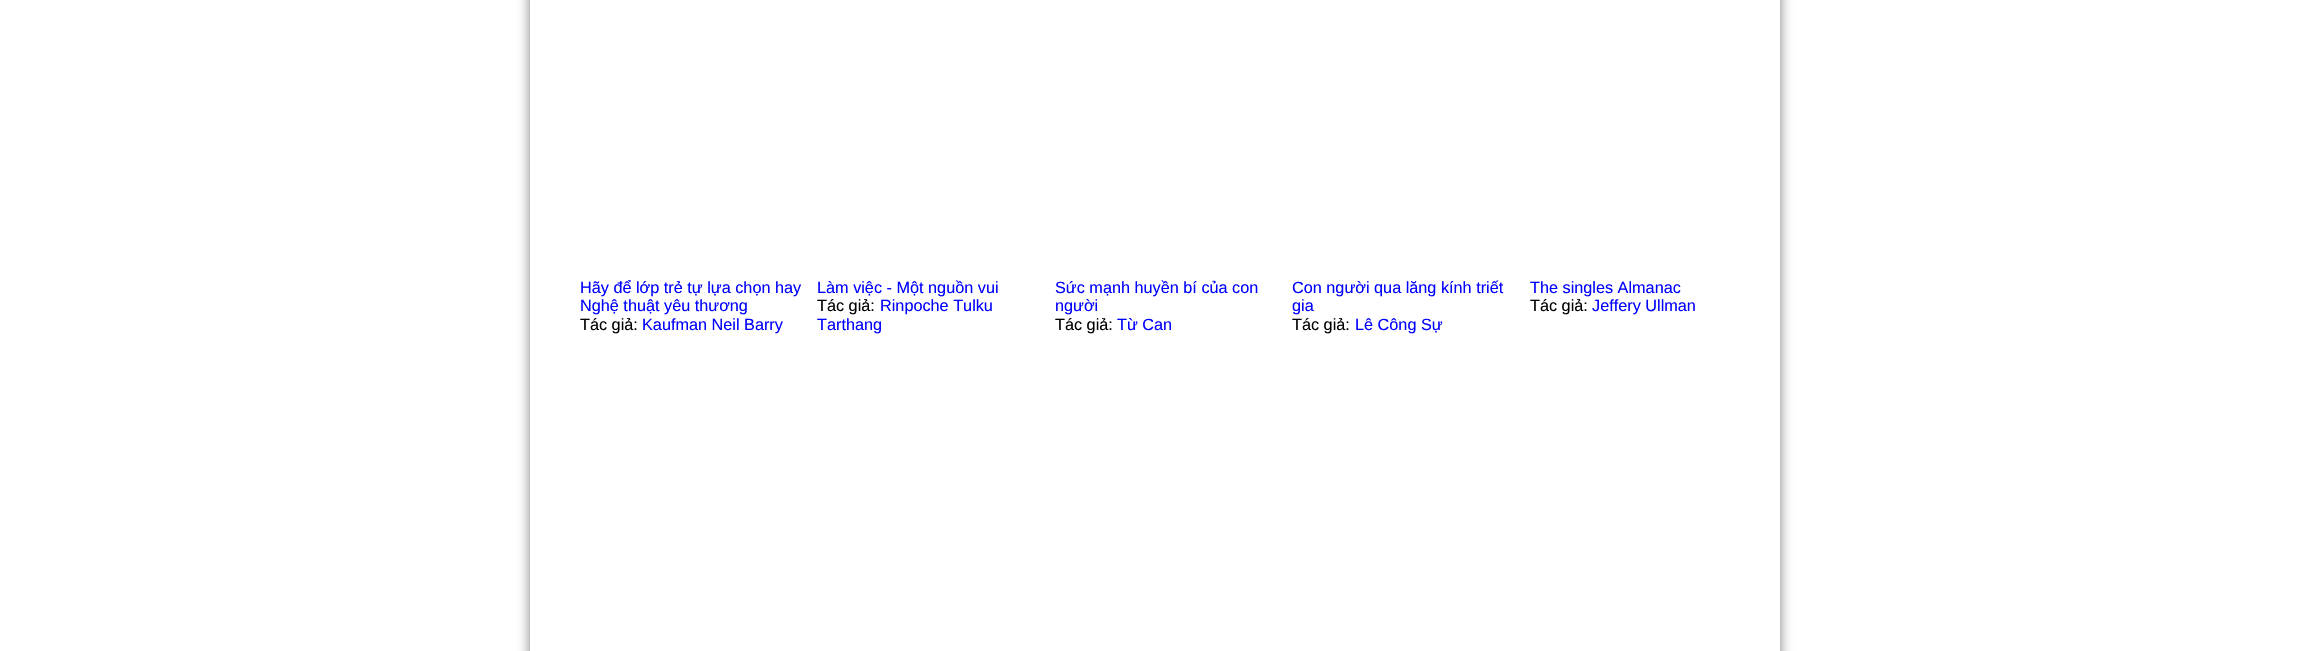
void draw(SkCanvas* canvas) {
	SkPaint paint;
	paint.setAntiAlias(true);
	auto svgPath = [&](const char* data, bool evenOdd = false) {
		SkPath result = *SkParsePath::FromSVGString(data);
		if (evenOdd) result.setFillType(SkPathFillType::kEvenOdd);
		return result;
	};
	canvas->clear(0xffffffff);
	canvas->save();
	canvas->clipPath(svgPath("M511 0H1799V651H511ZM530-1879H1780V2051H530Z", true), true);
	paint.setColor(0xff808080);
	paint.setMaskFilter(SkMaskFilter::MakeBlur(kNormal_SkBlurStyle, 6));
	canvas->drawRect(SkRect::MakeXYWH(530, -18, 1250, 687), paint);
	paint.setMaskFilter(nullptr);
	canvas->restore();
	SkFont f1(fontMgr->matchFamilyStyle("Liberation Sans", SkFontStyle::Normal()), 16.25);
	f1.setSubpixel(true);
	paint.setColor(0xff0000ff);
	canvas->drawString("Hãy để lớp trẻ tự lựa chọn hay", 580, 293, f1, paint);
	canvas->drawString("Nghệ thuật yêu thương", 580, 311, f1, paint);
	paint.setColor(0xff000000);
	canvas->drawString("Tác giả:", 580, 330, f1, paint);
	paint.setColor(0xff0000ff);
	canvas->drawString("Kaufman Neil Barry", 642, 330, f1, paint);
	canvas->drawString("Làm việc - Một nguồn vui", 817, 293, f1, paint);
	paint.setColor(0xff000000);
	canvas->drawString("Tác giả:", 817, 311, f1, paint);
	paint.setColor(0xff0000ff);
	canvas->drawString("Rinpoche Tulku", 880, 311, f1, paint);
	canvas->drawString("Tarthang", 817, 330, f1, paint);
	canvas->drawString("Sức mạnh huyền bí của con", 1055, 293, f1, paint);
	canvas->drawString("người", 1055, 311, f1, paint);
	paint.setColor(0xff000000);
	canvas->drawString("Tác giả:", 1055, 330, f1, paint);
	paint.setColor(0xff0000ff);
	canvas->drawString("Từ Can", 1117, 330, f1, paint);
	canvas->drawString("Con người qua lăng kính triết", 1292, 293, f1, paint);
	canvas->drawString("gia", 1292, 311, f1, paint);
	paint.setColor(0xff000000);
	canvas->drawString("Tác giả:", 1292, 330, f1, paint);
	paint.setColor(0xff0000ff);
	canvas->drawString("Lê Công Sự", 1355, 330, f1, paint);
	canvas->drawString("The singles Almanac", 1530, 293, f1, paint);
	paint.setColor(0xff000000);
	canvas->drawString("Tác giả:", 1530, 311, f1, paint);
	paint.setColor(0xff0000ff);
	canvas->drawString("Jeffery Ullman", 1592, 311, f1, paint);
}
